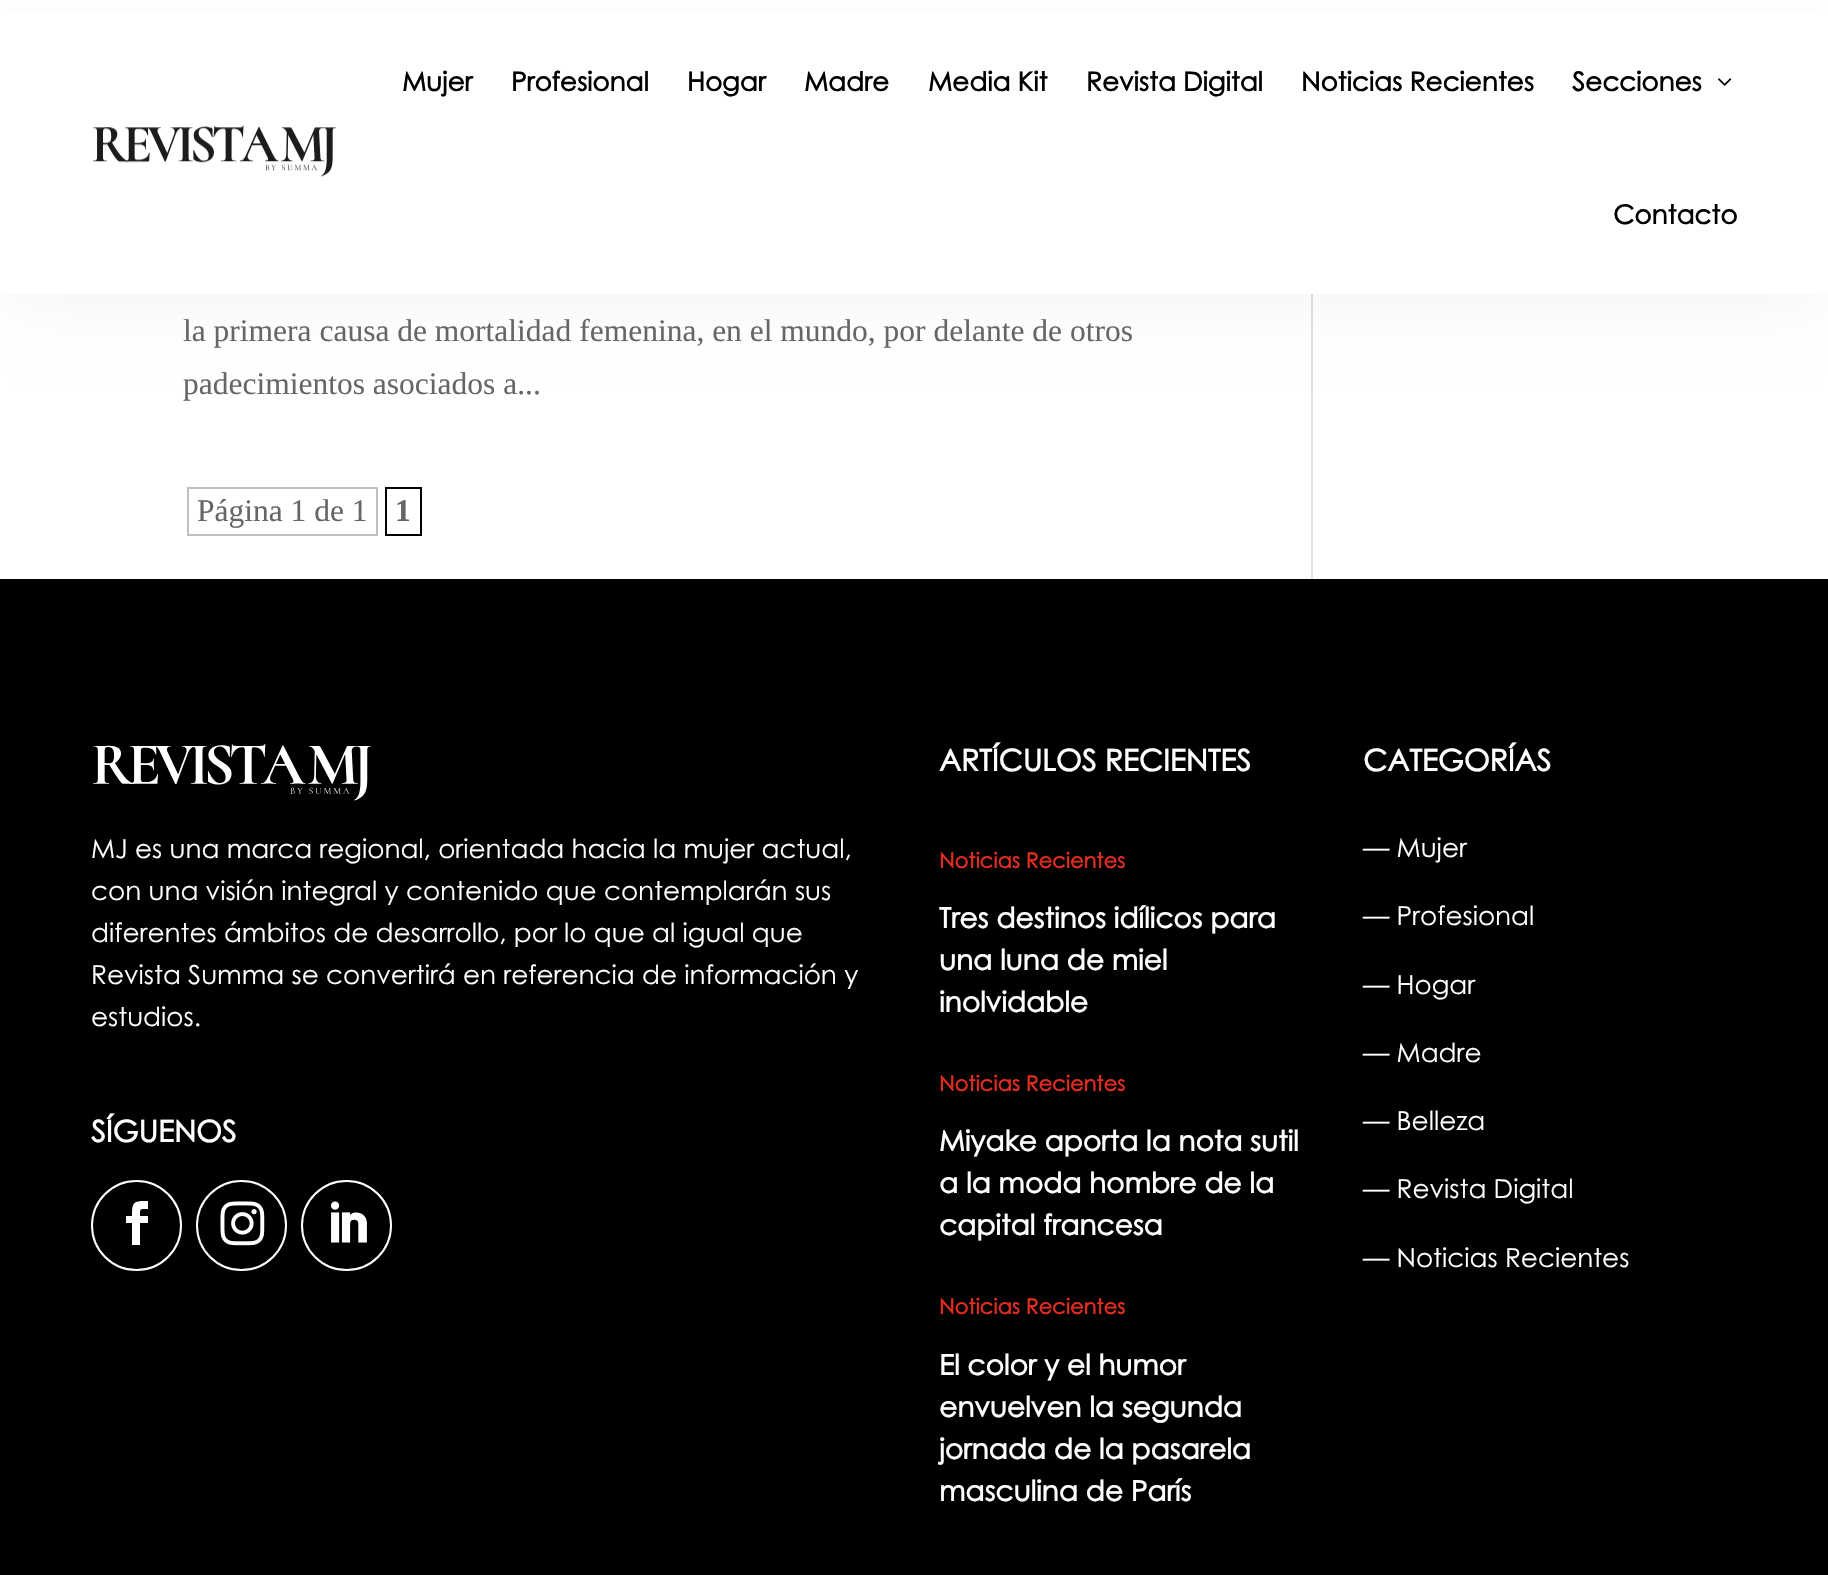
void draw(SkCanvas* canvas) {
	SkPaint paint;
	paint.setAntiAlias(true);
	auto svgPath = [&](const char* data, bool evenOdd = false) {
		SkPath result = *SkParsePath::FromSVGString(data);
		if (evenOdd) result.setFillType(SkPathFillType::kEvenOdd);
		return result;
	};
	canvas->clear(0xffffffff);
	paint.setColor(0xffe2e2e2);
	canvas->drawRect(SkRect::MakeXYWH(1311, 294, 2, 285), paint);
	paint.setColor(0x0a000000);
	paint.setMaskFilter(SkMaskFilter::MakeBlur(kNormal_SkBlurStyle, 28));
	canvas->drawRect(SkRect::MakeXYWH(11, 32, 1807, 273), paint);
	paint.setMaskFilter(nullptr);
	paint.setColor(0xffffffff);
	canvas->drawRect(SkRect::MakeXYWH(0, 13, 1828, 281), paint);
	canvas->drawImageRect(SkImages::DeferredFromEncodedData(SkData::MakeFromFileName("img1.png")), SkRect::MakeXYWH(93, 125, 243, 52), SkSamplingOptions());
	SkFont f1(fontMgr->matchFamilyStyle("Century Gothic", SkFontStyle::Bold()), 26.25);
	f1.setSubpixel(true);
	paint.setColor(0xff000000);
	canvas->drawString("Mujer", 402, 91, f1, paint);
	canvas->drawString("Profesional", 511, 91, f1, paint);
	canvas->drawString("Hogar", 687, 91, f1, paint);
	canvas->drawString("Madre", 804, 91, f1, paint);
	canvas->drawString("Media Kit", 928, 91, f1, paint);
	canvas->drawString("Revista Digital", 1086, 91, f1, paint);
	canvas->drawString("Noticias Recientes", 1301, 91, f1, paint);
	canvas->drawString("Secciones", 1572, 91, f1, paint);
	canvas->drawImageRect(SkImages::DeferredFromEncodedData(SkData::MakeFromFileName("img2.png")), SkRect::MakeXYWH(1718, 78, 14, 8), SkSamplingOptions());
	canvas->drawString("Contacto", 1613, 224, f1, paint);
	SkFont f2(fontMgr->matchFamilyStyle("Liberation Serif", SkFontStyle::Normal()), 31.5);
	f2.setSubpixel(true);
	paint.setColor(0xff666666);
	canvas->drawString("la primera causa de mortalidad femenina, en el mundo, por delante de otros", 183, 341, f2, paint);
	canvas->drawString("padecimientos asociados a...", 183, 394, f2, paint);
	paint.setStroke(true);
	paint.setStrokeWidth(2);
	paint.setColor(0xffbfbfbf);
	canvas->drawRect(SkRect::MakeXYWH(188, 488, 189, 47), paint);
	paint.setStroke(false);
	paint.setColor(0xff666666);
	canvas->drawString("Página 1 de 1", 197, 521, f2, paint);
	paint.setStroke(true);
	paint.setColor(0xff000000);
	canvas->drawRect(SkRect::MakeXYWH(386, 488, 35, 47), paint);
	SkFont f3(fontMgr->matchFamilyStyle("Liberation Serif", SkFontStyle::Bold()), 31.5);
	f3.setSubpixel(true);
	paint.setStroke(false);
	paint.setColor(0xff666666);
	canvas->drawString("1", 395, 521, f3, paint);
	paint.setColor(0xff000000);
	canvas->drawRect(SkRect::MakeXYWH(0, 579, 1828, 996), paint);
	canvas->drawImageRect(SkImages::DeferredFromEncodedData(SkData::MakeFromFileName("img3.png")), SkRect::MakeXYWH(93, 744, 278, 57), SkSamplingOptions());
	SkFont f4(fontMgr->matchFamilyStyle("Century Gothic", SkFontStyle::Normal()), 26.25);
	f4.setSubpixel(true);
	paint.setColor(0xffffffff);
	canvas->drawString("MJ es una marca regional, orientada hacia la mujer actual,", 91, 858, f4, paint);
	canvas->drawString("con una visión integral y contenido que contemplarán sus", 91, 900, f4, paint);
	canvas->drawString("diferentes ámbitos de desarrollo, por lo que al igual que", 91, 942, f4, paint);
	canvas->drawString("Revista Summa se convertirá en referencia de información y", 91, 984, f4, paint);
	canvas->drawString("estudios.", 91, 1026, f4, paint);
	SkFont f5(fontMgr->matchFamilyStyle("Century Gothic", SkFontStyle::Bold()), 29.75);
	f5.setSubpixel(true);
	canvas->drawString("SÍGUENOS", 91, 1142, f5, paint);
	paint.setStroke(true);
	canvas->drawCircle(136.5, 1225.5, 44.5, paint);
	paint.setStroke(false);
	canvas->drawPath(svgPath("M132 1245H140V1223H148V1216H140C140 1208 140 1209 148 1209V1201C134 1201 132 1201 132 1216H126V1223H132Z"), paint);
	paint.setStroke(true);
	canvas->drawCircle(241.5, 1225.5, 44.5, paint);
	canvas->drawImageRect(SkImages::DeferredFromEncodedData(SkData::MakeFromFileName("img4.png")), SkRect::MakeXYWH(220, 1201, 45, 45), SkSamplingOptions());
	canvas->drawCircle(346.5, 1225.5, 44.5, paint);
	canvas->drawImageRect(SkImages::DeferredFromEncodedData(SkData::MakeFromFileName("img5.png")), SkRect::MakeXYWH(331, 1201, 36, 42), SkSamplingOptions());
	paint.setStroke(false);
	canvas->drawString("ARTÍCULOS RECIENTES", 939, 771, f5, paint);
	SkFont f6(fontMgr->matchFamilyStyle("Century Gothic", SkFontStyle::Bold()), 21);
	f6.setSubpixel(true);
	paint.setColor(0xffe02b20);
	canvas->drawString("Noticias Recientes", 939, 868, f6, paint);
	SkFont f7(fontMgr->matchFamilyStyle("Century Gothic", SkFontStyle::Bold()), 28);
	f7.setSubpixel(true);
	paint.setColor(0xffffffff);
	canvas->drawString("Tres destinos idílicos para", 939, 928, f7, paint);
	canvas->drawString("una luna de miel", 939, 970, f7, paint);
	canvas->drawString("inolvidable", 939, 1012, f7, paint);
	paint.setColor(0xffe02b20);
	canvas->drawString("Noticias Recientes", 939, 1091, f6, paint);
	paint.setColor(0xffffffff);
	canvas->drawString("Miyake aporta la nota sutil", 939, 1151, f7, paint);
	canvas->drawString("a la moda hombre de la", 939, 1193, f7, paint);
	canvas->drawString("capital francesa", 939, 1235, f7, paint);
	paint.setColor(0xffe02b20);
	canvas->drawString("Noticias Recientes", 939, 1314, f6, paint);
	paint.setColor(0xffffffff);
	canvas->drawString("El color y el humor", 939, 1375, f7, paint);
	canvas->drawString("envuelven la segunda", 939, 1417, f7, paint);
	canvas->drawString("jornada de la pasarela", 939, 1459, f7, paint);
	canvas->drawString("masculina de París", 939, 1501, f7, paint);
	canvas->drawString("CATEGORÍAS", 1363, 771, f5, paint);
	canvas->drawString("— Mujer", 1363, 857, f4, paint);
	canvas->drawString("— Profesional", 1363, 925, f4, paint);
	canvas->drawString("— Hogar", 1363, 994, f4, paint);
	canvas->drawString("— Madre", 1363, 1062, f4, paint);
	canvas->drawString("— Belleza", 1363, 1130, f4, paint);
	canvas->drawString("— Revista Digital", 1363, 1198, f4, paint);
	canvas->drawString("— Noticias Recientes", 1363, 1267, f4, paint);
}
